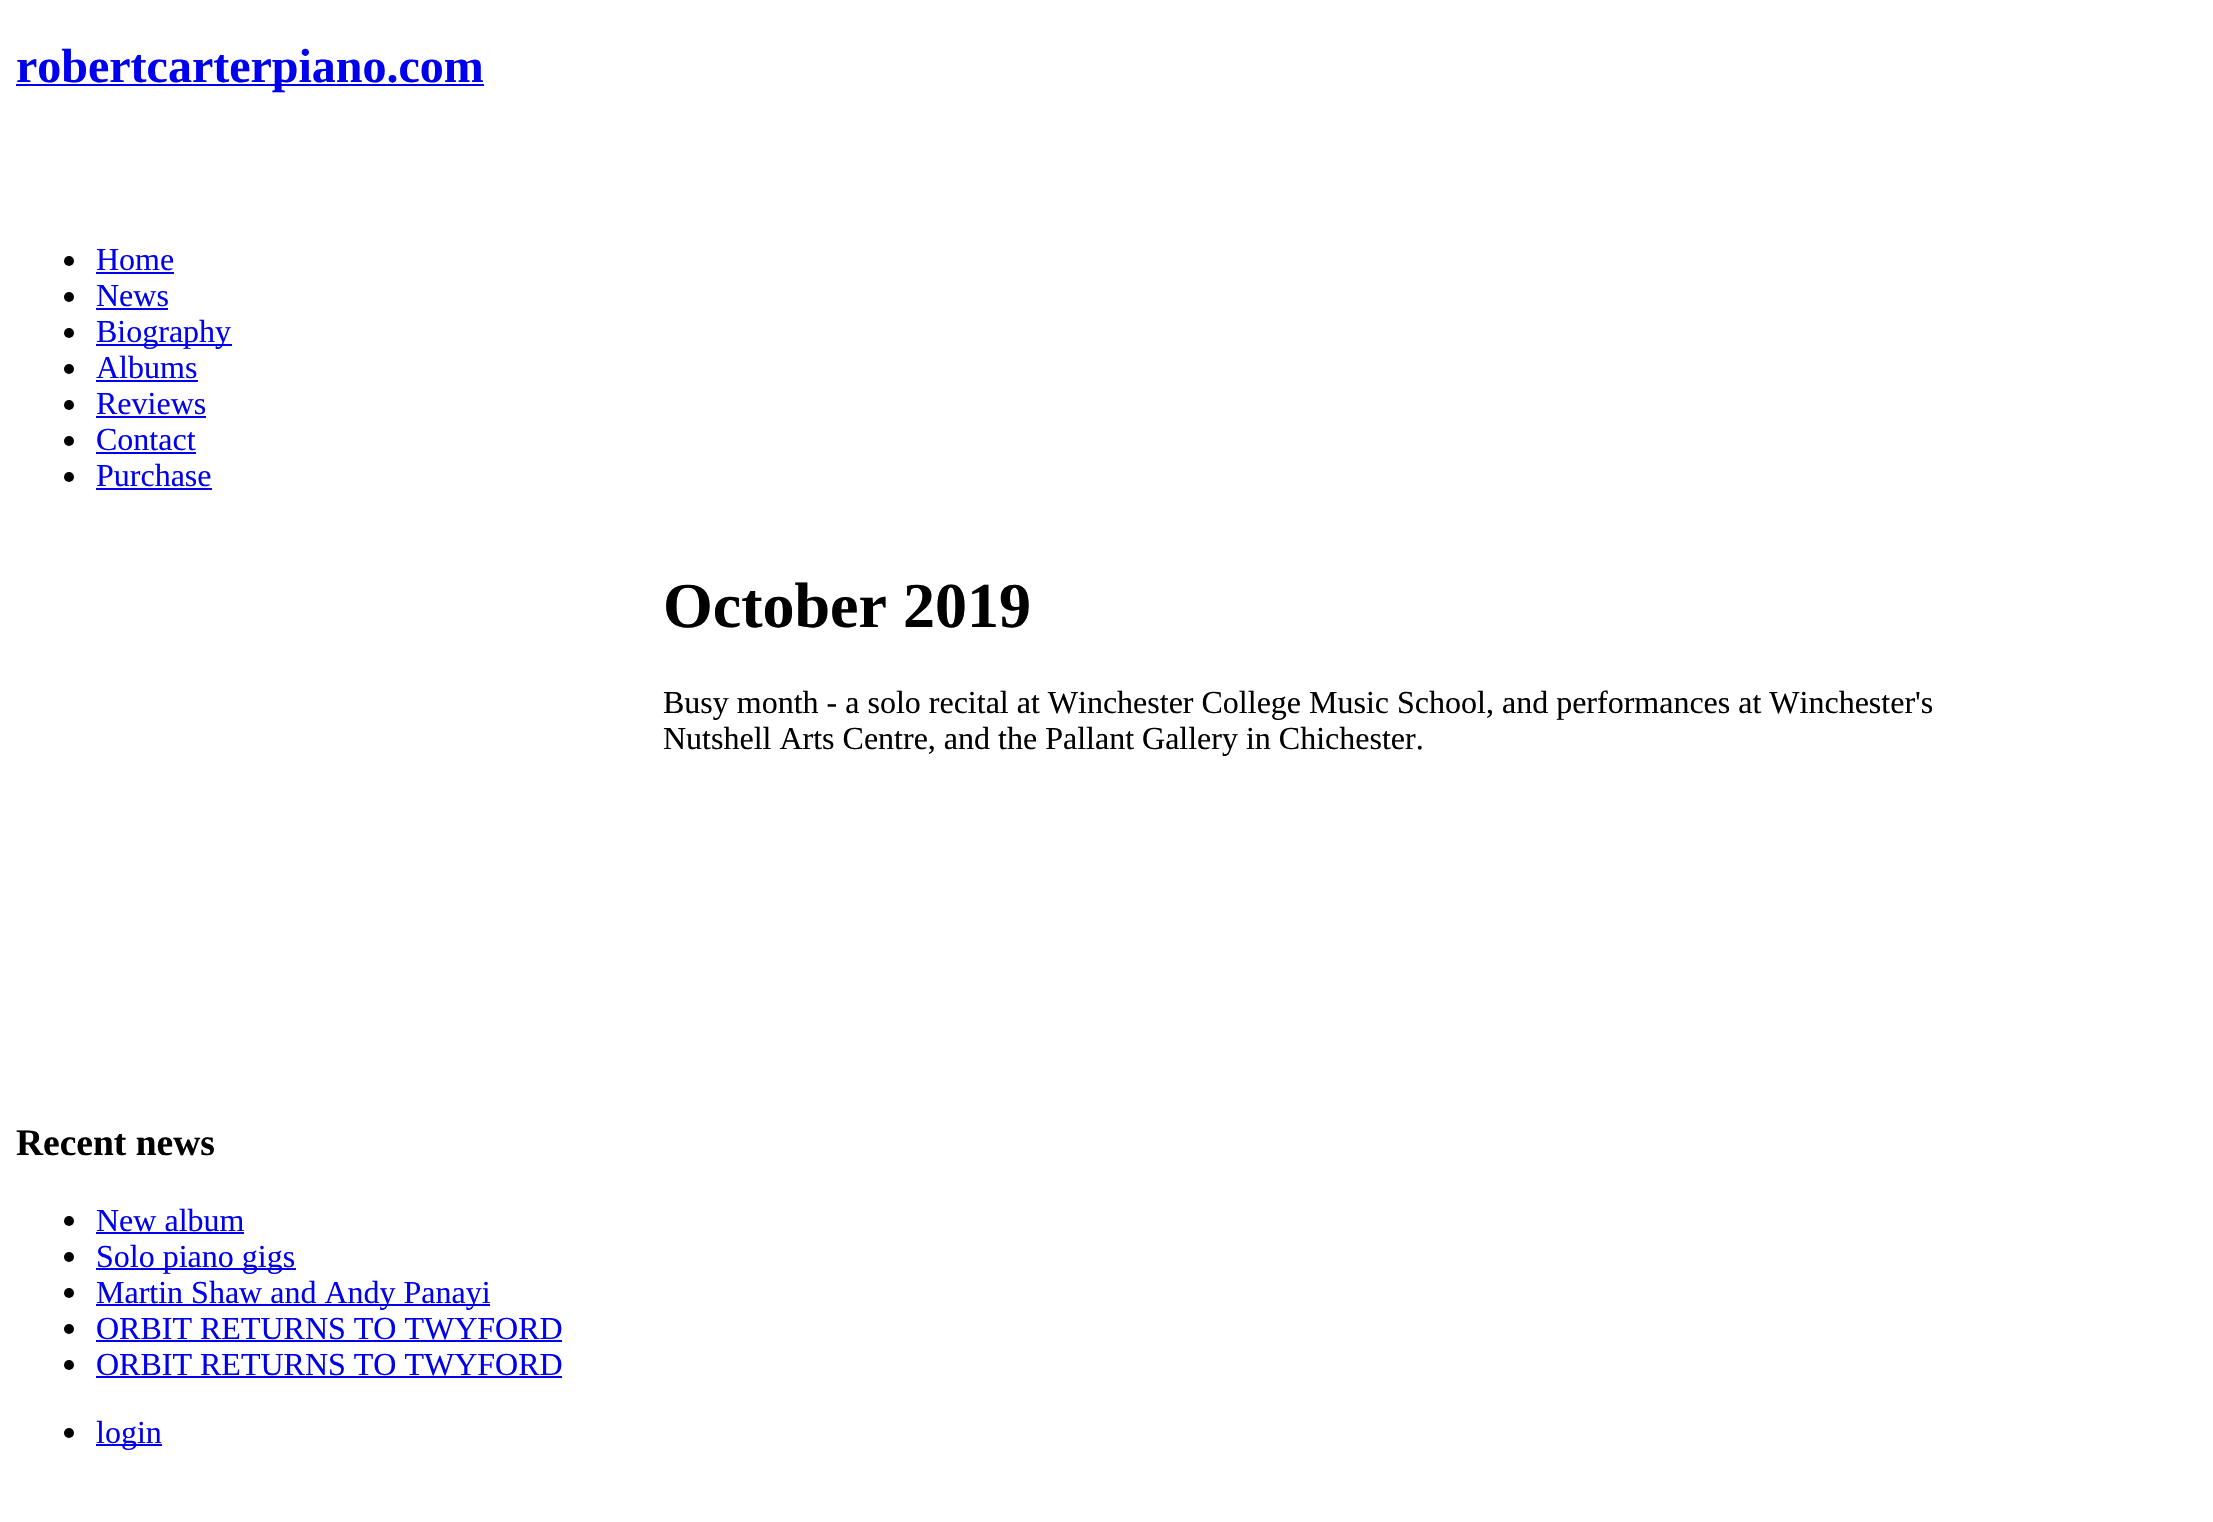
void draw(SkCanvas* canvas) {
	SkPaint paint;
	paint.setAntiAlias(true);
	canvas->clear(0xffffffff);
	paint.setColor(0xff0000ee);
	canvas->drawRect(SkRect::MakeXYWH(16, 84, 468, 2), paint);
	SkFont f1(fontMgr->matchFamilyStyle("Liberation Serif", SkFontStyle::Bold()), 48);
	f1.setSubpixel(true);
	canvas->drawString("robertcarterpiano.com", 16, 82, f1, paint);
	paint.setColor(0xff000000);
	canvas->drawCircle(69, 261, 5, paint);
	SkFont f2(fontMgr->matchFamilyStyle("Liberation Serif", SkFontStyle::Normal()), 32);
	f2.setSubpixel(true);
	paint.setColor(0xff0000ee);
	canvas->drawString("Home", 96, 270, f2, paint);
	canvas->drawRect(SkRect::MakeXYWH(96, 272, 78, 2), paint);
	paint.setColor(0xff000000);
	canvas->drawCircle(69, 297, 5, paint);
	paint.setColor(0xff0000ee);
	canvas->drawString("News", 96, 306, f2, paint);
	canvas->drawRect(SkRect::MakeXYWH(96, 308, 72, 2), paint);
	paint.setColor(0xff000000);
	canvas->drawCircle(69, 333, 5, paint);
	paint.setColor(0xff0000ee);
	canvas->drawRect(SkRect::MakeXYWH(96, 344, 136, 2), paint);
	canvas->drawString("Biography", 96, 342, f2, paint);
	paint.setColor(0xff000000);
	canvas->drawCircle(69, 369, 5, paint);
	paint.setColor(0xff0000ee);
	canvas->drawString("Albums", 96, 378, f2, paint);
	canvas->drawRect(SkRect::MakeXYWH(96, 380, 102, 2), paint);
	paint.setColor(0xff000000);
	canvas->drawCircle(69, 405, 5, paint);
	paint.setColor(0xff0000ee);
	canvas->drawString("Reviews", 96, 414, f2, paint);
	canvas->drawRect(SkRect::MakeXYWH(96, 416, 110, 2), paint);
	paint.setColor(0xff000000);
	canvas->drawCircle(69, 441, 5, paint);
	paint.setColor(0xff0000ee);
	canvas->drawString("Contact", 96, 450, f2, paint);
	canvas->drawRect(SkRect::MakeXYWH(96, 452, 100, 2), paint);
	paint.setColor(0xff000000);
	canvas->drawCircle(69, 477, 5, paint);
	paint.setColor(0xff0000ee);
	canvas->drawString("Purchase", 96, 486, f2, paint);
	canvas->drawRect(SkRect::MakeXYWH(96, 488, 116, 2), paint);
	SkFont f3(fontMgr->matchFamilyStyle("Liberation Serif", SkFontStyle::Bold()), 64);
	f3.setSubpixel(true);
	paint.setColor(0xff000000);
	canvas->drawString("October 2019", 663, 627, f3, paint);
	canvas->drawString("Busy month - a solo recital at Winchester College Music School, and performances at Winchester's", 663, 713, f2, paint);
	canvas->drawString("Nutshell Arts Centre, and the Pallant Gallery in Chichester.", 663, 749, f2, paint);
	SkFont f4(fontMgr->matchFamilyStyle("Liberation Serif", SkFontStyle::Bold()), 37.5);
	f4.setSubpixel(true);
	canvas->drawString("Recent news", 16, 1155, f4, paint);
	canvas->drawCircle(69, 1221, 5, paint);
	paint.setColor(0xff0000ee);
	canvas->drawString("New album", 96, 1231, f2, paint);
	canvas->drawRect(SkRect::MakeXYWH(96, 1232, 148, 2), paint);
	paint.setColor(0xff000000);
	canvas->drawCircle(69, 1257, 5, paint);
	paint.setColor(0xff0000ee);
	canvas->drawRect(SkRect::MakeXYWH(96, 1268, 200, 2), paint);
	canvas->drawString("Solo piano gigs", 96, 1267, f2, paint);
	paint.setColor(0xff000000);
	canvas->drawCircle(69, 1293, 5, paint);
	paint.setColor(0xff0000ee);
	canvas->drawRect(SkRect::MakeXYWH(96, 1304, 394, 2), paint);
	canvas->drawString("Martin Shaw and Andy Panayi", 96, 1303, f2, paint);
	paint.setColor(0xff000000);
	canvas->drawCircle(69, 1329, 5, paint);
	paint.setColor(0xff0000ee);
	canvas->drawString("ORBIT RETURNS TO TWYFORD", 96, 1339, f2, paint);
	canvas->drawRect(SkRect::MakeXYWH(96, 1340, 466, 2), paint);
	paint.setColor(0xff000000);
	canvas->drawCircle(69, 1365, 5, paint);
	paint.setColor(0xff0000ee);
	canvas->drawString("ORBIT RETURNS TO TWYFORD", 96, 1375, f2, paint);
	canvas->drawRect(SkRect::MakeXYWH(96, 1376, 466, 2), paint);
	paint.setColor(0xff000000);
	canvas->drawCircle(69, 1433, 5, paint);
	paint.setColor(0xff0000ee);
	canvas->drawRect(SkRect::MakeXYWH(96, 1444, 66, 2), paint);
	canvas->drawString("login", 96, 1443, f2, paint);
}
